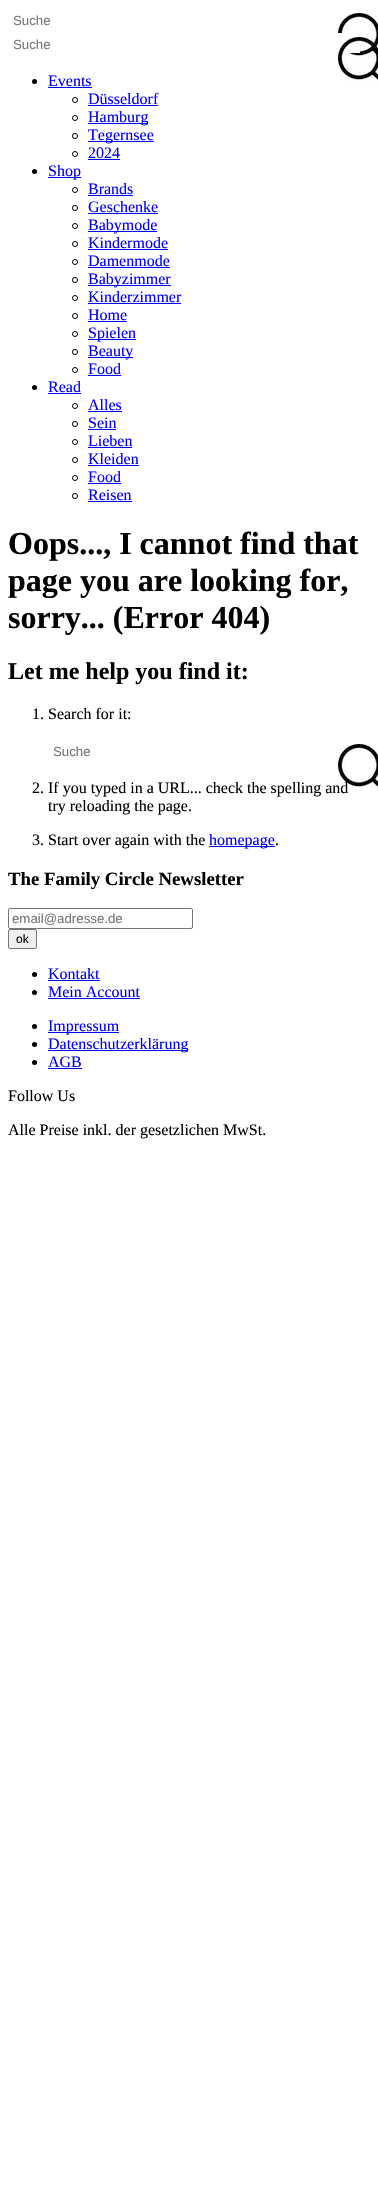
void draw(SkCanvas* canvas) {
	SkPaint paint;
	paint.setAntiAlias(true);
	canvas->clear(0xffffffff);
	SkFont f1(fontMgr->matchFamilyStyle("Liberation Sans", SkFontStyle::Normal()), 13.25);
	f1.setSubpixel(true);
	paint.setColor(0xff757575);
	canvas->drawString("Suche", 13, 25, f1, paint);
	canvas->drawImageRect(SkImages::DeferredFromEncodedData(SkData::MakeFromFileName("img1.png")), SkRect::MakeXYWH(338, 13, 40, 44), SkSamplingOptions());
	canvas->drawString("Suche", 13, 49, f1, paint);
	paint.setColor(0xffffffff);
	canvas->drawRect(SkRect::MakeXYWH(338, 33, 22, 20), paint);
	canvas->drawImageRect(SkImages::DeferredFromEncodedData(SkData::MakeFromFileName("img2.png")), SkRect::MakeXYWH(338, 37, 40, 44), SkSamplingOptions());
	paint.setColor(0xff000000);
	canvas->drawCircle(34.5, 81.5, 2.5, paint);
	SkFont f2(fontMgr->matchFamilyStyle("Liberation Serif", SkFontStyle::Normal()), 16);
	f2.setSubpixel(true);
	paint.setColor(0xff0000ee);
	canvas->drawString("Events", 48, 86, f2, paint);
	canvas->drawRect(SkRect::MakeXYWH(48, 87, 44, 1), paint);
	paint.setStroke(true);
	paint.setStrokeWidth(1);
	paint.setColor(0xff000000);
	canvas->drawCircle(75, 100, 2.5, paint);
	paint.setStroke(false);
	paint.setColor(0xff0000ee);
	canvas->drawString("Düsseldorf", 88, 104, f2, paint);
	canvas->drawRect(SkRect::MakeXYWH(88, 105, 70, 1), paint);
	paint.setStroke(true);
	paint.setColor(0xff000000);
	canvas->drawCircle(75, 118, 2.5, paint);
	paint.setStroke(false);
	paint.setColor(0xff0000ee);
	canvas->drawRect(SkRect::MakeXYWH(88, 123, 60, 1), paint);
	canvas->drawString("Hamburg", 88, 122, f2, paint);
	paint.setStroke(true);
	paint.setColor(0xff000000);
	canvas->drawCircle(75, 136, 2.5, paint);
	paint.setStroke(false);
	paint.setColor(0xff0000ee);
	canvas->drawRect(SkRect::MakeXYWH(88, 141, 66, 1), paint);
	canvas->drawString("Tegernsee", 88, 140, f2, paint);
	paint.setStroke(true);
	paint.setColor(0xff000000);
	canvas->drawCircle(75, 154, 2.5, paint);
	paint.setStroke(false);
	paint.setColor(0xff0000ee);
	canvas->drawString("2024", 88, 158, f2, paint);
	canvas->drawRect(SkRect::MakeXYWH(88, 159, 32, 1), paint);
	paint.setColor(0xff000000);
	canvas->drawCircle(34.5, 171.5, 2.5, paint);
	paint.setColor(0xff0000ee);
	canvas->drawRect(SkRect::MakeXYWH(48, 177, 33, 1), paint);
	canvas->drawString("Shop", 48, 176, f2, paint);
	paint.setStroke(true);
	paint.setColor(0xff000000);
	canvas->drawCircle(75, 190, 2.5, paint);
	paint.setStroke(false);
	paint.setColor(0xff0000ee);
	canvas->drawString("Brands", 88, 194, f2, paint);
	canvas->drawRect(SkRect::MakeXYWH(88, 195, 45, 1), paint);
	paint.setStroke(true);
	paint.setColor(0xff000000);
	canvas->drawCircle(75, 208, 2.5, paint);
	paint.setStroke(false);
	paint.setColor(0xff0000ee);
	canvas->drawString("Geschenke", 88, 212, f2, paint);
	canvas->drawRect(SkRect::MakeXYWH(88, 213, 70, 1), paint);
	paint.setStroke(true);
	paint.setColor(0xff000000);
	canvas->drawCircle(75, 226, 2.5, paint);
	paint.setStroke(false);
	paint.setColor(0xff0000ee);
	canvas->drawRect(SkRect::MakeXYWH(88, 231, 69, 1), paint);
	canvas->drawString("Babymode", 88, 230, f2, paint);
	paint.setStroke(true);
	paint.setColor(0xff000000);
	canvas->drawCircle(75, 244, 2.5, paint);
	paint.setStroke(false);
	paint.setColor(0xff0000ee);
	canvas->drawString("Kindermode", 88, 248, f2, paint);
	canvas->drawRect(SkRect::MakeXYWH(88, 249, 80, 1), paint);
	paint.setStroke(true);
	paint.setColor(0xff000000);
	canvas->drawCircle(75, 262, 2.5, paint);
	paint.setStroke(false);
	paint.setColor(0xff0000ee);
	canvas->drawString("Damenmode", 88, 266, f2, paint);
	canvas->drawRect(SkRect::MakeXYWH(88, 267, 82, 1), paint);
	paint.setStroke(true);
	paint.setColor(0xff000000);
	canvas->drawCircle(75, 280, 2.5, paint);
	paint.setStroke(false);
	paint.setColor(0xff0000ee);
	canvas->drawRect(SkRect::MakeXYWH(88, 285, 83, 1), paint);
	canvas->drawString("Babyzimmer", 88, 284, f2, paint);
	paint.setStroke(true);
	paint.setColor(0xff000000);
	canvas->drawCircle(75, 298, 2.5, paint);
	paint.setStroke(false);
	paint.setColor(0xff0000ee);
	canvas->drawString("Kinderzimmer", 88, 302, f2, paint);
	canvas->drawRect(SkRect::MakeXYWH(88, 303, 93, 1), paint);
	paint.setStroke(true);
	paint.setColor(0xff000000);
	canvas->drawCircle(75, 316, 2.5, paint);
	paint.setStroke(false);
	paint.setColor(0xff0000ee);
	canvas->drawString("Home", 88, 320, f2, paint);
	canvas->drawRect(SkRect::MakeXYWH(88, 321, 39, 1), paint);
	paint.setStroke(true);
	paint.setColor(0xff000000);
	canvas->drawCircle(75, 334, 2.5, paint);
	paint.setStroke(false);
	paint.setColor(0xff0000ee);
	canvas->drawRect(SkRect::MakeXYWH(88, 339, 48, 1), paint);
	canvas->drawString("Spielen", 88, 338, f2, paint);
	paint.setStroke(true);
	paint.setColor(0xff000000);
	canvas->drawCircle(75, 352, 2.5, paint);
	paint.setStroke(false);
	paint.setColor(0xff0000ee);
	canvas->drawRect(SkRect::MakeXYWH(88, 357, 45, 1), paint);
	canvas->drawString("Beauty", 88, 356, f2, paint);
	paint.setStroke(true);
	paint.setColor(0xff000000);
	canvas->drawCircle(75, 370, 2.5, paint);
	paint.setStroke(false);
	paint.setColor(0xff0000ee);
	canvas->drawString("Food", 88, 374, f2, paint);
	canvas->drawRect(SkRect::MakeXYWH(88, 375, 33, 1), paint);
	paint.setColor(0xff000000);
	canvas->drawCircle(34.5, 387.5, 2.5, paint);
	paint.setColor(0xff0000ee);
	canvas->drawString("Read", 48, 392, f2, paint);
	canvas->drawRect(SkRect::MakeXYWH(48, 393, 33, 1), paint);
	paint.setStroke(true);
	paint.setColor(0xff000000);
	canvas->drawCircle(75, 406, 2.5, paint);
	paint.setStroke(false);
	paint.setColor(0xff0000ee);
	canvas->drawString("Alles", 88, 410, f2, paint);
	canvas->drawRect(SkRect::MakeXYWH(88, 411, 34, 1), paint);
	paint.setStroke(true);
	paint.setColor(0xff000000);
	canvas->drawCircle(75, 424, 2.5, paint);
	paint.setStroke(false);
	paint.setColor(0xff0000ee);
	canvas->drawString("Sein", 88, 428, f2, paint);
	canvas->drawRect(SkRect::MakeXYWH(88, 429, 28, 1), paint);
	paint.setStroke(true);
	paint.setColor(0xff000000);
	canvas->drawCircle(75, 442, 2.5, paint);
	paint.setStroke(false);
	paint.setColor(0xff0000ee);
	canvas->drawString("Lieben", 88, 446, f2, paint);
	canvas->drawRect(SkRect::MakeXYWH(88, 447, 44, 1), paint);
	paint.setStroke(true);
	paint.setColor(0xff000000);
	canvas->drawCircle(75, 460, 2.5, paint);
	paint.setStroke(false);
	paint.setColor(0xff0000ee);
	canvas->drawString("Kleiden", 88, 464, f2, paint);
	canvas->drawRect(SkRect::MakeXYWH(88, 465, 51, 1), paint);
	paint.setStroke(true);
	paint.setColor(0xff000000);
	canvas->drawCircle(75, 478, 2.5, paint);
	paint.setStroke(false);
	paint.setColor(0xff0000ee);
	canvas->drawString("Food", 88, 482, f2, paint);
	canvas->drawRect(SkRect::MakeXYWH(88, 483, 33, 1), paint);
	paint.setStroke(true);
	paint.setColor(0xff000000);
	canvas->drawCircle(75, 496, 2.5, paint);
	paint.setStroke(false);
	paint.setColor(0xff0000ee);
	canvas->drawString("Reisen", 88, 500, f2, paint);
	canvas->drawRect(SkRect::MakeXYWH(88, 501, 44, 1), paint);
	SkFont f3(fontMgr->matchFamilyStyle("Liberation Serif", SkFontStyle::Bold()), 32);
	f3.setSubpixel(true);
	paint.setColor(0xff000000);
	canvas->drawString("Oops..., I cannot find that", 8, 554, f3, paint);
	canvas->drawString("page you are looking for,", 8, 591, f3, paint);
	canvas->drawString("sorry... (Error 404)", 8, 628, f3, paint);
	SkFont f4(fontMgr->matchFamilyStyle("Liberation Serif", SkFontStyle::Bold()), 24);
	f4.setSubpixel(true);
	canvas->drawString("Let me help you find it:", 8, 679, f4, paint);
	canvas->drawString("1. Search for it:", 32, 719, f2, paint);
	paint.setColor(0xff757575);
	canvas->drawString("Suche", 53, 756, f1, paint);
	paint.setColor(0xff000000);
	canvas->drawString("2. If you typed in a URL... check the spelling and", 32, 793, f2, paint);
	canvas->drawImageRect(SkImages::DeferredFromEncodedData(SkData::MakeFromFileName("img3.png")), SkRect::MakeXYWH(338, 744, 40, 44), SkSamplingOptions());
	canvas->drawString("try reloading the page.", 48, 811, f2, paint);
	canvas->drawString("3. Start over again with the", 32, 845, f2, paint);
	paint.setColor(0xff0000ee);
	canvas->drawRect(SkRect::MakeXYWH(209, 846, 66, 1), paint);
	canvas->drawString("homepage", 209, 845, f2, paint);
	paint.setColor(0xff000000);
	canvas->drawString(".", 275, 845, f2, paint);
	SkFont f5(fontMgr->matchFamilyStyle("Liberation Serif", SkFontStyle::Bold()), 18.75);
	f5.setSubpixel(true);
	canvas->drawString("The Family Circle Newsletter", 8, 885, f5, paint);
	paint.setStroke(true);
	paint.setColor(0xff767676);
	canvas->drawRoundRect(SkRect::MakeXYWH(8.5, 908.5, 184, 20), 1.5, 1.5, paint);
	paint.setStroke(false);
	paint.setColor(0xff757575);
	canvas->drawString("email@adresse.de", 12, 923, f1, paint);
	paint.setColor(0xffefefef);
	canvas->drawRoundRect(SkRect::MakeXYWH(8.5, 929.5, 28, 19), 1.5, 1.5, paint);
	paint.setStroke(true);
	paint.setColor(0xff767676);
	canvas->drawRoundRect(SkRect::MakeXYWH(8.5, 929.5, 28, 19), 1.5, 1.5, paint);
	SkFont f6(fontMgr->matchFamilyStyle("Liberation Sans", SkFontStyle::Normal()), 12);
	f6.setSubpixel(true);
	paint.setStroke(false);
	paint.setColor(0xff000000);
	canvas->drawString("ok", 16, 943, f6, paint);
	canvas->drawCircle(34.5, 974.5, 2.5, paint);
	paint.setColor(0xff0000ee);
	canvas->drawString("Kontakt", 48, 979, f2, paint);
	canvas->drawRect(SkRect::MakeXYWH(48, 980, 52, 1), paint);
	paint.setColor(0xff000000);
	canvas->drawCircle(34.5, 992.5, 2.5, paint);
	paint.setColor(0xff0000ee);
	canvas->drawString("Mein Account", 48, 997, f2, paint);
	canvas->drawRect(SkRect::MakeXYWH(48, 998, 92, 1), paint);
	paint.setColor(0xff000000);
	canvas->drawCircle(34.5, 1026.5, 2.5, paint);
	paint.setColor(0xff0000ee);
	canvas->drawRect(SkRect::MakeXYWH(48, 1032, 71, 1), paint);
	canvas->drawString("Impressum", 48, 1031, f2, paint);
	paint.setColor(0xff000000);
	canvas->drawCircle(34.5, 1044.5, 2.5, paint);
	paint.setColor(0xff0000ee);
	canvas->drawRect(SkRect::MakeXYWH(48, 1050, 140, 1), paint);
	canvas->drawString("Datenschutzerklärung", 48, 1049, f2, paint);
	paint.setColor(0xff000000);
	canvas->drawCircle(34.5, 1062.5, 2.5, paint);
	paint.setColor(0xff0000ee);
	canvas->drawString("AGB", 48, 1067, f2, paint);
	canvas->drawRect(SkRect::MakeXYWH(48, 1068, 34, 1), paint);
	paint.setColor(0xff000000);
	canvas->drawString("Follow Us", 8, 1101, f2, paint);
	canvas->drawString("Alle Preise inkl. der gesetzlichen MwSt.", 8, 1135, f2, paint);
}
